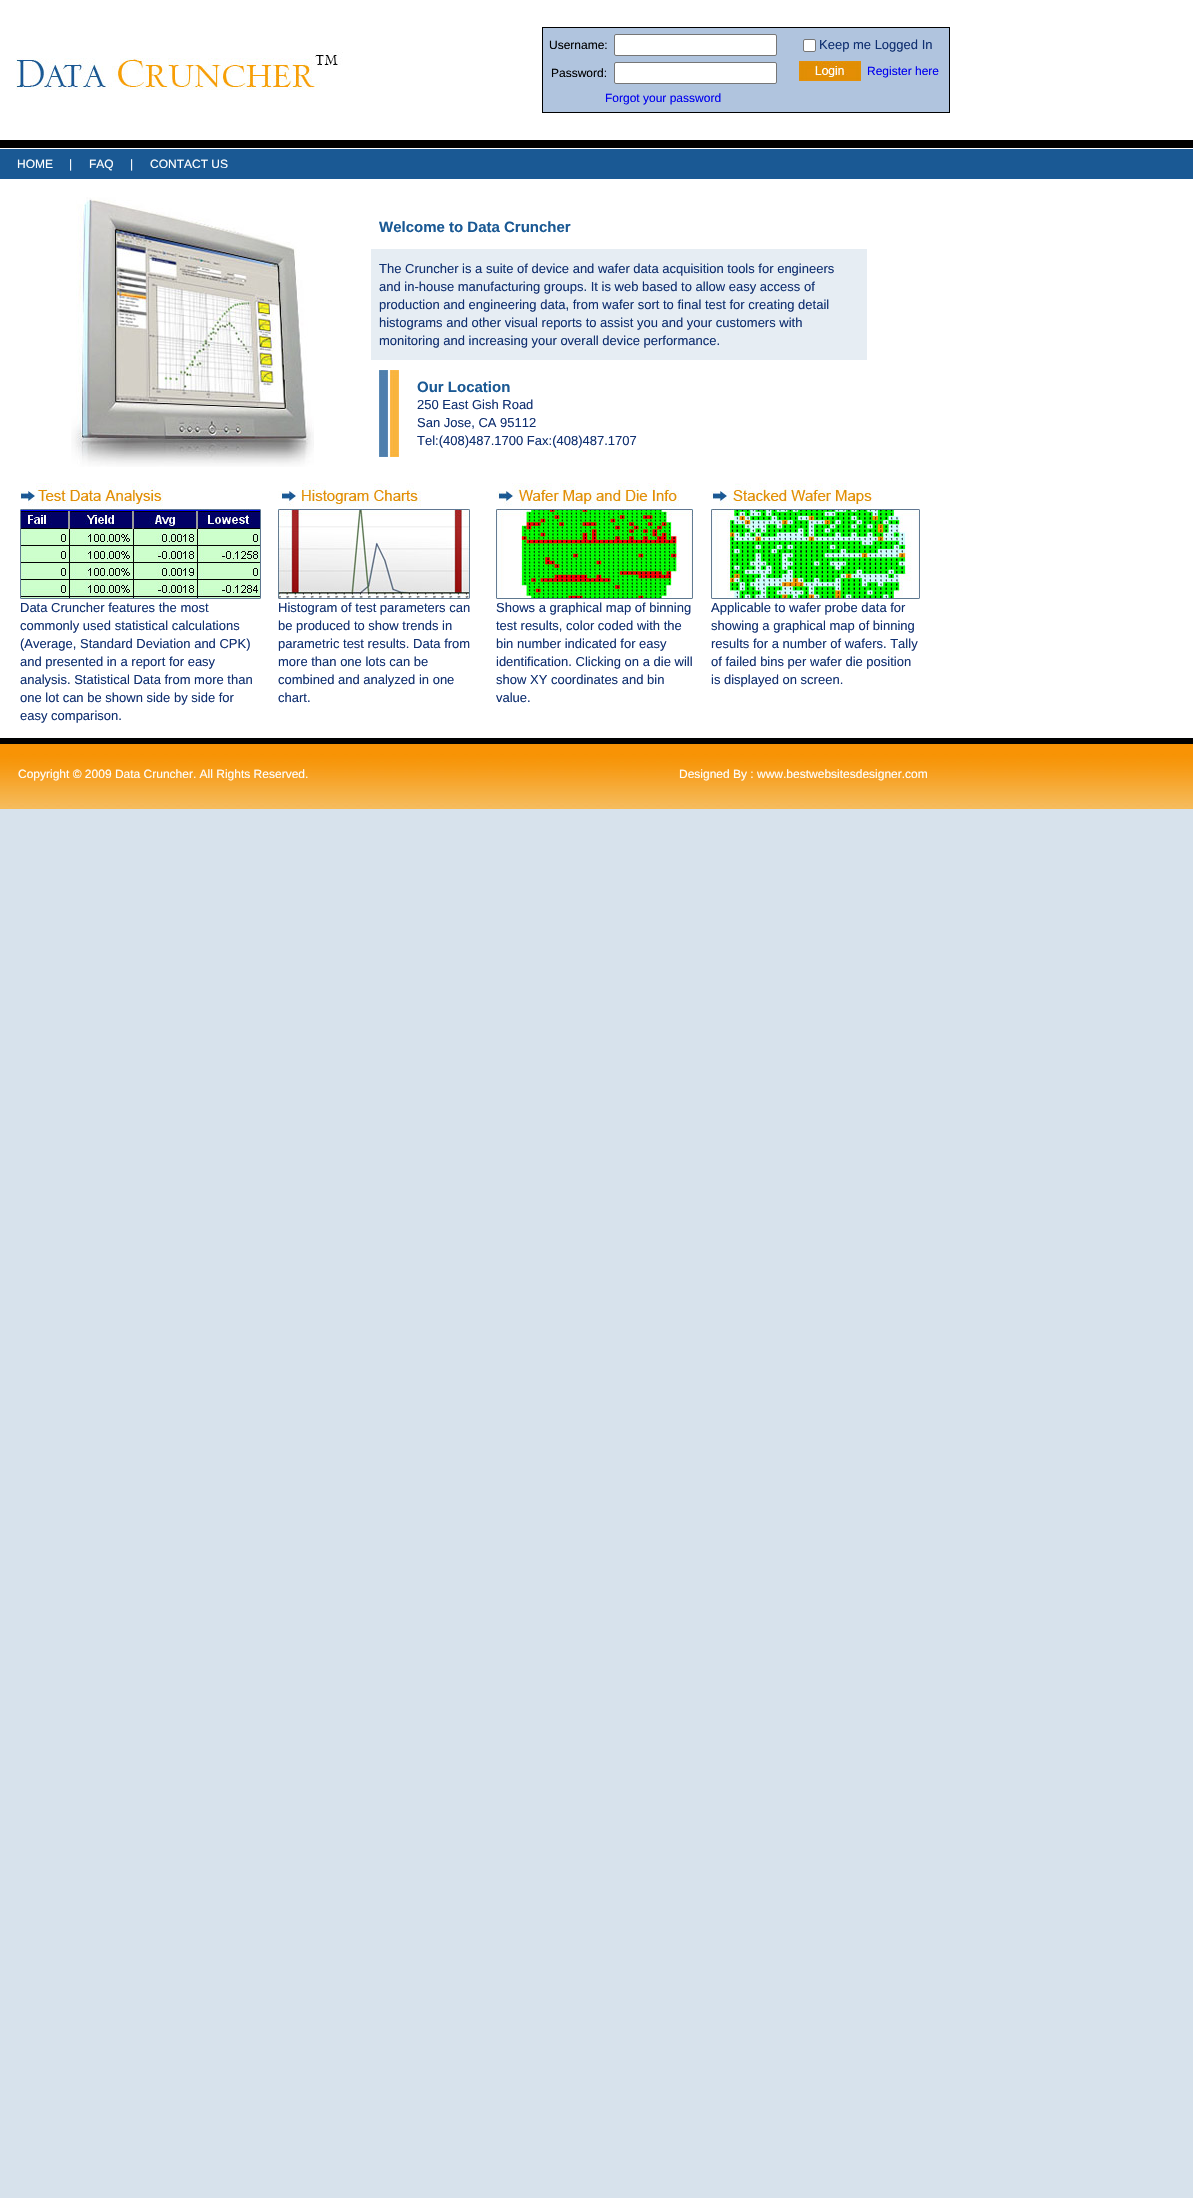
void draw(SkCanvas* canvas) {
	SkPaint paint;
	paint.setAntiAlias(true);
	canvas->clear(0xffd7e2ec);
	paint.setColor(0xffffffff);
	canvas->drawRect(SkRect::MakeXYWH(0, 0, 1193, 738), paint);
	canvas->drawImageRect(SkImages::DeferredFromEncodedData(SkData::MakeFromFileName("img1.png")), SkRect::MakeXYWH(16, 50, 327, 40), SkSamplingOptions());
	paint.setColor(0xffb0c4de);
	canvas->drawRect(SkRect::MakeXYWH(542.5, 27.5, 407, 85), paint);
	paint.setStroke(true);
	paint.setStrokeWidth(1);
	paint.setColor(0xff000000);
	canvas->drawRect(SkRect::MakeXYWH(542.5, 27.5, 407, 85), paint);
	SkFont f1(fontMgr->matchFamilyStyle("Liberation Sans", SkFontStyle::Normal()), 12);
	f1.setSubpixel(true);
	paint.setStroke(false);
	canvas->drawString("Username:", 549, 49, f1, paint);
	paint.setColor(0xffffffff);
	canvas->drawRoundRect(SkRect::MakeXYWH(614.5, 34.5, 162, 21), 1.5, 1.5, paint);
	paint.setStroke(true);
	paint.setColor(0xff767676);
	canvas->drawRoundRect(SkRect::MakeXYWH(614.5, 34.5, 162, 21), 1.5, 1.5, paint);
	paint.setStroke(false);
	paint.setColor(0xff000000);
	canvas->drawString("Password:", 551, 77, f1, paint);
	paint.setColor(0xffffffff);
	canvas->drawRoundRect(SkRect::MakeXYWH(614.5, 62.5, 162, 21), 1.5, 1.5, paint);
	paint.setStroke(true);
	paint.setColor(0xff767676);
	canvas->drawRoundRect(SkRect::MakeXYWH(614.5, 62.5, 162, 21), 1.5, 1.5, paint);
	paint.setStroke(false);
	paint.setColor(0xff0000ee);
	canvas->drawString("Forgot your password", 605, 102, f1, paint);
	paint.setColor(0xffffffff);
	canvas->drawRoundRect(SkRect::MakeXYWH(803.5, 39.5, 12, 12), 1.5, 1.5, paint);
	paint.setStroke(true);
	paint.setColor(0xff767676);
	canvas->drawRoundRect(SkRect::MakeXYWH(803.5, 39.5, 12, 12), 1.5, 1.5, paint);
	SkFont f2(fontMgr->matchFamilyStyle("Liberation Sans", SkFontStyle::Normal()), 13);
	f2.setSubpixel(true);
	paint.setStroke(false);
	paint.setColor(0xff103071);
	canvas->drawString("Keep me Logged In", 819, 49, f2, paint);
	canvas->drawImageRect(SkImages::DeferredFromEncodedData(SkData::MakeFromFileName("img2.png")), SkRect::MakeXYWH(799, 61, 62, 20), SkSamplingOptions());
	paint.setColor(0xff0000ee);
	canvas->drawString("Register here", 867, 75, f1, paint);
	paint.setColor(0xff000000);
	canvas->drawRect(SkRect::MakeXYWH(0, 140, 1193, 8), paint);
	paint.setColor(0xff1a5994);
	canvas->drawRect(SkRect::MakeXYWH(0, 149, 1193, 30), paint);
	paint.setColor(0xffffffff);
	canvas->drawString("HOME", 17, 168, f1, paint);
	canvas->drawString("|", 69, 168, f1, paint);
	canvas->drawString("FAQ", 89, 168, f1, paint);
	canvas->drawString("|", 130, 168, f1, paint);
	canvas->drawString("CONTACT US", 150, 168, f1, paint);
	canvas->drawImageRect(SkImages::DeferredFromEncodedData(SkData::MakeFromFileName("img3.png")), SkRect::MakeXYWH(71, 197, 243, 270), SkSamplingOptions());
	SkFont f3(fontMgr->matchFamilyStyle("Liberation Sans", SkFontStyle::Bold()), 15);
	f3.setSubpixel(true);
	paint.setColor(0xff1a5994);
	canvas->drawString("Welcome to Data Cruncher", 379, 232, f3, paint);
	paint.setColor(0xffe6edf3);
	canvas->drawRect(SkRect::MakeXYWH(371, 249, 496, 111), paint);
	paint.setColor(0xff103071);
	canvas->drawString("The Cruncher is a suite of device and wafer data acquisition tools for engineers", 379, 273, f2, paint);
	canvas->drawString("and in-house manufacturing groups. It is web based to allow easy access of", 379, 291, f2, paint);
	canvas->drawString("production and engineering data, from wafer sort to final test for creating detail", 379, 309, f2, paint);
	canvas->drawString("histograms and other visual reports to assist you and your customers with", 379, 327, f2, paint);
	canvas->drawString("monitoring and increasing your overall device performance.", 379, 345, f2, paint);
	canvas->drawImageRect(SkImages::DeferredFromEncodedData(SkData::MakeFromFileName("img4.png")), SkRect::MakeXYWH(379, 370, 20, 87), SkSamplingOptions());
	paint.setColor(0xff1a5994);
	canvas->drawString("Our Location", 417, 392, f3, paint);
	paint.setColor(0xff103071);
	canvas->drawString("250 East Gish Road", 417, 409, f2, paint);
	canvas->drawString("San Jose, CA 95112", 417, 427, f2, paint);
	canvas->drawString("Tel:(408)487.1700 Fax:(408)487.1707", 417, 445, f2, paint);
	canvas->drawImageRect(SkImages::DeferredFromEncodedData(SkData::MakeFromFileName("img5.png")), SkRect::MakeXYWH(20, 483, 143, 24), SkSamplingOptions());
	canvas->drawImageRect(SkImages::DeferredFromEncodedData(SkData::MakeFromFileName("img6.png")), SkRect::MakeXYWH(20, 509, 241, 90), SkSamplingOptions());
	canvas->drawString("Data Cruncher features the most", 20, 612, f2, paint);
	canvas->drawString("commonly used statistical calculations", 20, 630, f2, paint);
	canvas->drawString("(Average, Standard Deviation and CPK)", 20, 648, f2, paint);
	canvas->drawString("and presented in a report for easy", 20, 666, f2, paint);
	canvas->drawString("analysis. Statistical Data from more than", 20, 684, f2, paint);
	canvas->drawString("one lot can be shown side by side for", 20, 702, f2, paint);
	canvas->drawString("easy comparison.", 20, 720, f2, paint);
	canvas->drawImageRect(SkImages::DeferredFromEncodedData(SkData::MakeFromFileName("img7.png")), SkRect::MakeXYWH(278, 483, 143, 24), SkSamplingOptions());
	canvas->drawImageRect(SkImages::DeferredFromEncodedData(SkData::MakeFromFileName("img8.png")), SkRect::MakeXYWH(278, 509, 192, 90), SkSamplingOptions());
	canvas->drawString("Histogram of test parameters can", 278, 612, f2, paint);
	canvas->drawString("be produced to show trends in", 278, 630, f2, paint);
	canvas->drawString("parametric test results. Data from", 278, 648, f2, paint);
	canvas->drawString("more than one lots can be", 278, 666, f2, paint);
	canvas->drawString("combined and analyzed in one", 278, 684, f2, paint);
	canvas->drawString("chart.", 278, 702, f2, paint);
	canvas->drawImageRect(SkImages::DeferredFromEncodedData(SkData::MakeFromFileName("img9.png")), SkRect::MakeXYWH(496, 483, 183, 24), SkSamplingOptions());
	canvas->drawImageRect(SkImages::DeferredFromEncodedData(SkData::MakeFromFileName("img10.png")), SkRect::MakeXYWH(496, 509, 197, 90), SkSamplingOptions());
	canvas->drawString("Shows a graphical map of binning", 496, 612, f2, paint);
	canvas->drawString("test results, color coded with the", 496, 630, f2, paint);
	canvas->drawString("bin number indicated for easy", 496, 648, f2, paint);
	canvas->drawString("identification. Clicking on a die will", 496, 666, f2, paint);
	canvas->drawString("show XY coordinates and bin", 496, 684, f2, paint);
	canvas->drawString("value.", 496, 702, f2, paint);
	canvas->drawImageRect(SkImages::DeferredFromEncodedData(SkData::MakeFromFileName("img11.png")), SkRect::MakeXYWH(711, 483, 168, 24), SkSamplingOptions());
	canvas->drawImageRect(SkImages::DeferredFromEncodedData(SkData::MakeFromFileName("img12.png")), SkRect::MakeXYWH(711, 509, 209, 90), SkSamplingOptions());
	canvas->drawString("Applicable to wafer probe data for", 711, 612, f2, paint);
	canvas->drawString("showing a graphical map of binning", 711, 630, f2, paint);
	canvas->drawString("results for a number of wafers. Tally", 711, 648, f2, paint);
	canvas->drawString("of failed bins per wafer die position", 711, 666, f2, paint);
	canvas->drawString("is displayed on screen.", 711, 684, f2, paint);
	canvas->drawImageRect(SkImages::DeferredFromEncodedData(SkData::MakeFromFileName("img13.png")), SkRect::MakeXYWH(0, 738, 1193, 71), SkSamplingOptions());
	paint.setColor(0xffffffff);
	canvas->drawString("Copyright © 2009 Data Cruncher. All Rights Reserved.", 18, 778, f1, paint);
	canvas->drawString("Designed By : www.bestwebsitesdesigner.com", 679, 778, f1, paint);
}
